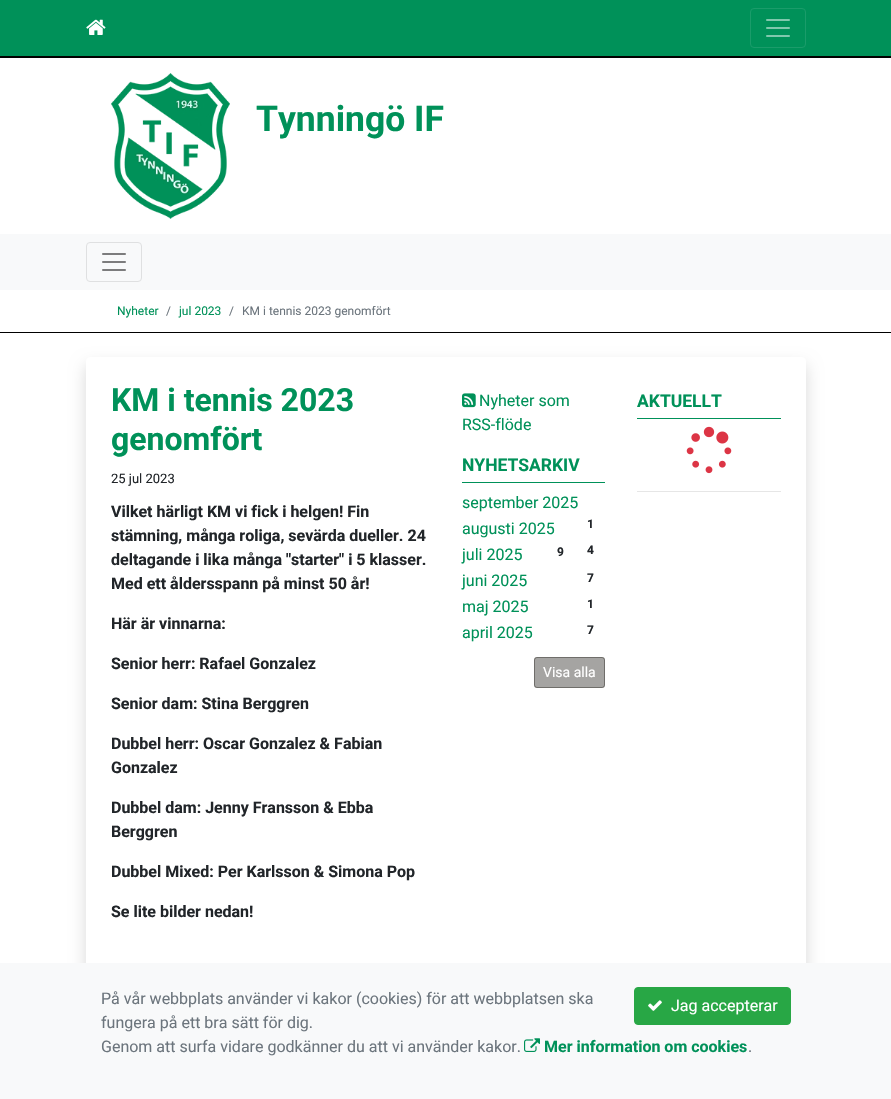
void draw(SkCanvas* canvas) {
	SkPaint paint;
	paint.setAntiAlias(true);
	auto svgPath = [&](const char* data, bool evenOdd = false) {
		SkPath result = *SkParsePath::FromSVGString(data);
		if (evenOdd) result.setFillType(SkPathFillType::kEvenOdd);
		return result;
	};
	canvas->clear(0xffffffff);
	paint.setColor(0xff009159);
	canvas->drawRect(SkRect::MakeXYWH(0, 0, 891, 56), paint);
	paint.setColor(0xff000000);
	canvas->drawRect(SkRect::MakeXYWH(0, 56, 891, 2), paint);
	canvas->drawImageRect(SkImages::DeferredFromEncodedData(SkData::MakeFromFileName("img1.png")), SkRect::MakeXYWH(86, 19, 20, 16), SkSamplingOptions());
	paint.setStroke(true);
	paint.setStrokeWidth(1);
	paint.setColor(0xff1a9c6a);
	canvas->drawRoundRect(SkRect::MakeXYWH(750.5, 8.5, 55, 39), 3.5, 3.5, paint);
	canvas->drawImageRect(SkImages::DeferredFromEncodedData(SkData::MakeFromFileName("img2.png")), SkRect::MakeXYWH(766, 19, 24, 18), SkSamplingOptions());
	canvas->drawImageRect(SkImages::DeferredFromEncodedData(SkData::MakeFromFileName("img3.png")), SkRect::MakeXYWH(111, 73, 119, 146), SkSamplingOptions());
	SkFont f1(fontMgr->matchFamilyStyle("Roboto", SkFontStyle::Bold()), 35.5);
	f1.setSubpixel(true);
	paint.setStroke(false);
	paint.setColor(0xff009159);
	canvas->drawString("Tynningö IF", 256, 131, f1, paint);
	paint.setColor(0xfff8f9fa);
	canvas->drawRect(SkRect::MakeXYWH(0, 234, 891, 56), paint);
	paint.setStroke(true);
	paint.setColor(0xffdfe0e1);
	canvas->drawRoundRect(SkRect::MakeXYWH(86.5, 242.5, 55, 39), 3.5, 3.5, paint);
	canvas->drawImageRect(SkImages::DeferredFromEncodedData(SkData::MakeFromFileName("img4.png")), SkRect::MakeXYWH(102, 253, 24, 18), SkSamplingOptions());
	paint.setStroke(false);
	paint.setColor(0xff000000);
	canvas->drawRect(SkRect::MakeXYWH(0, 332, 891, 1), paint);
	SkFont f2(fontMgr->matchFamilyStyle("Roboto", SkFontStyle::Normal()), 12);
	f2.setSubpixel(true);
	paint.setColor(0xff009159);
	canvas->drawString("Nyheter", 117, 315, f2, paint);
	paint.setColor(0xff6c757d);
	canvas->drawString("/", 166, 315, f2, paint);
	paint.setColor(0xff009159);
	canvas->drawString("jul 2023", 179, 315, f2, paint);
	paint.setColor(0xff6c757d);
	canvas->drawString("/", 229, 315, f2, paint);
	canvas->drawString("KM i tennis 2023 genomfört", 242, 315, f2, paint);
	canvas->save();
	canvas->clipPath(svgPath("M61 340H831V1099H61ZM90 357H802C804 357 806 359 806 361V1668C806 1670 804 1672 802 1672H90C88 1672 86 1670 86 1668V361C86 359 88 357 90 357Z", true), true);
	paint.setColor(0x26000000);
	paint.setMaskFilter(SkMaskFilter::MakeBlur(kNormal_SkBlurStyle, 8));
	canvas->drawRoundRect(SkRect::MakeXYWH(86, 365, 720, 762), 4, 4, paint);
	paint.setMaskFilter(nullptr);
	canvas->restore();
	SkFont f3(fontMgr->matchFamilyStyle("Roboto", SkFontStyle::Bold()), 32);
	f3.setSubpixel(true);
	paint.setColor(0xff009159);
	canvas->drawString("KM i tennis 2023", 111, 411, f3, paint);
	canvas->drawString("genomfört", 111, 450, f3, paint);
	SkFont f4(fontMgr->matchFamilyStyle("Roboto", SkFontStyle::Normal()), 13);
	f4.setSubpixel(true);
	paint.setColor(0xff212529);
	canvas->drawString("25 jul 2023", 111, 483, f4, paint);
	SkFont f5(fontMgr->matchFamilyStyle("Roboto", SkFontStyle::Bold()), 16);
	f5.setSubpixel(true);
	canvas->drawString("Vilket härligt KM vi fick i helgen! Fin", 111, 517, f5, paint);
	canvas->drawString("stämning, många roliga, sevärda dueller. 24", 111, 541, f5, paint);
	canvas->drawString("deltagande i lika många \"starter\" i 5 klasser.", 111, 565, f5, paint);
	canvas->drawString("Med ett åldersspann på minst 50 år!", 111, 589, f5, paint);
	canvas->drawString("Här är vinnarna:", 111, 629, f5, paint);
	canvas->drawString("Senior herr: Rafael Gonzalez", 111, 669, f5, paint);
	canvas->drawString("Senior dam: Stina Berggren", 111, 709, f5, paint);
	canvas->drawString("Dubbel herr: Oscar Gonzalez & Fabian", 111, 749, f5, paint);
	canvas->drawString("Gonzalez", 111, 773, f5, paint);
	canvas->drawString("Dubbel dam: Jenny Fransson & Ebba", 111, 813, f5, paint);
	canvas->drawString("Berggren", 111, 837, f5, paint);
	canvas->drawString("Dubbel Mixed: Per Karlsson & Simona Pop", 111, 877, f5, paint);
	canvas->drawString("Se lite bilder nedan!", 111, 917, f5, paint);
	canvas->drawImageRect(SkImages::DeferredFromEncodedData(SkData::MakeFromFileName("img5.png")), SkRect::MakeXYWH(462, 393, 14, 15), SkSamplingOptions());
	SkFont f6(fontMgr->matchFamilyStyle("Roboto", SkFontStyle::Normal()), 16);
	f6.setSubpixel(true);
	paint.setColor(0xff009159);
	canvas->drawString("Nyheter som", 479, 406, f6, paint);
	canvas->drawString("RSS-flöde", 462, 430, f6, paint);
	canvas->drawRect(SkRect::MakeXYWH(462, 482, 143, 1), paint);
	SkFont f7(fontMgr->matchFamilyStyle("Roboto", SkFontStyle::Bold()), 17.5);
	f7.setSubpixel(true);
	canvas->drawString("NYHETSARKIV", 462, 471, f7, paint);
	canvas->drawString("september 2025", 462, 508, f6, paint);
	SkFont f8(fontMgr->matchFamilyStyle("Roboto", SkFontStyle::Bold()), 12);
	f8.setSubpixel(true);
	paint.setColor(0xff212529);
	canvas->drawString("1", 587, 528, f8, paint);
	paint.setColor(0xff009159);
	canvas->drawString("augusti 2025", 462, 534, f6, paint);
	paint.setColor(0xff212529);
	canvas->drawString("4", 587, 554, f8, paint);
	paint.setColor(0xff009159);
	canvas->drawString("juli 2025", 462, 560, f6, paint);
	paint.setColor(0xff212529);
	canvas->drawString("9", 557, 556, f8, paint);
	paint.setColor(0xff009159);
	canvas->drawString("juni 2025", 462, 586, f6, paint);
	paint.setColor(0xff212529);
	canvas->drawString("7", 587, 582, f8, paint);
	paint.setColor(0xff009159);
	canvas->drawString("maj 2025", 462, 612, f6, paint);
	paint.setColor(0xff212529);
	canvas->drawString("1", 587, 608, f8, paint);
	paint.setColor(0xff009159);
	canvas->drawString("april 2025", 462, 638, f6, paint);
	paint.setColor(0xff212529);
	canvas->drawString("7", 587, 634, f8, paint);
	paint.setColor(0xffa5a4a2);
	canvas->drawRoundRect(SkRect::MakeXYWH(534, 657, 71, 31), 3, 3, paint);
	paint.setStroke(true);
	paint.setColor(0x661d1b17);
	canvas->drawRoundRect(SkRect::MakeXYWH(534.5, 657.5, 70, 30), 2.5, 2.5, paint);
	SkFont f9(fontMgr->matchFamilyStyle("Roboto", SkFontStyle::Normal()), 14);
	f9.setSubpixel(true);
	paint.setStroke(false);
	paint.setColor(0xffffffff);
	canvas->drawString("Visa alla", 543, 677, f9, paint);
	paint.setColor(0xff009159);
	canvas->drawRect(SkRect::MakeXYWH(637, 418, 144, 1), paint);
	canvas->drawString("AKTUELLT", 637, 407, f7, paint);
	canvas->drawImageRect(SkImages::DeferredFromEncodedData(SkData::MakeFromFileName("img6.png")), SkRect::MakeXYWH(686, 426, 46, 48), SkSamplingOptions());
	paint.setColor(0xffe6e6e6);
	canvas->drawRect(SkRect::MakeXYWH(637, 491, 144, 1), paint);
	paint.setColor(0xfff8f9fa);
	canvas->drawRect(SkRect::MakeXYWH(0, 963, 891, 136), paint);
	paint.setColor(0xff6c757d);
	canvas->drawString("På vår webbplats använder vi kakor (cookies) för att webbplatsen ska", 101, 1004, f6, paint);
	canvas->drawString("fungera på ett bra sätt för dig.", 101, 1028, f6, paint);
	canvas->drawString("Genom att surfa vidare godkänner du att vi använder kakor.", 101, 1052, f6, paint);
	canvas->drawImageRect(SkImages::DeferredFromEncodedData(SkData::MakeFromFileName("img7.png")), SkRect::MakeXYWH(524, 1038, 16, 14), SkSamplingOptions());
	paint.setColor(0xff009159);
	canvas->drawString("Mer information om cookies", 544, 1052, f5, paint);
	paint.setColor(0xff6c757d);
	canvas->drawString(".", 748, 1052, f6, paint);
	paint.setColor(0xff28a745);
	canvas->drawRoundRect(SkRect::MakeXYWH(634.5, 987.5, 156, 37), 3.5, 3.5, paint);
	paint.setStroke(true);
	canvas->drawRoundRect(SkRect::MakeXYWH(634.5, 987.5, 156, 37), 3.5, 3.5, paint);
	canvas->drawImageRect(SkImages::DeferredFromEncodedData(SkData::MakeFromFileName("img8.png")), SkRect::MakeXYWH(648, 1000, 14, 11), SkSamplingOptions());
	paint.setStroke(false);
	paint.setColor(0xffffffff);
	canvas->drawString("Jag accepterar", 671, 1011, f6, paint);
}
